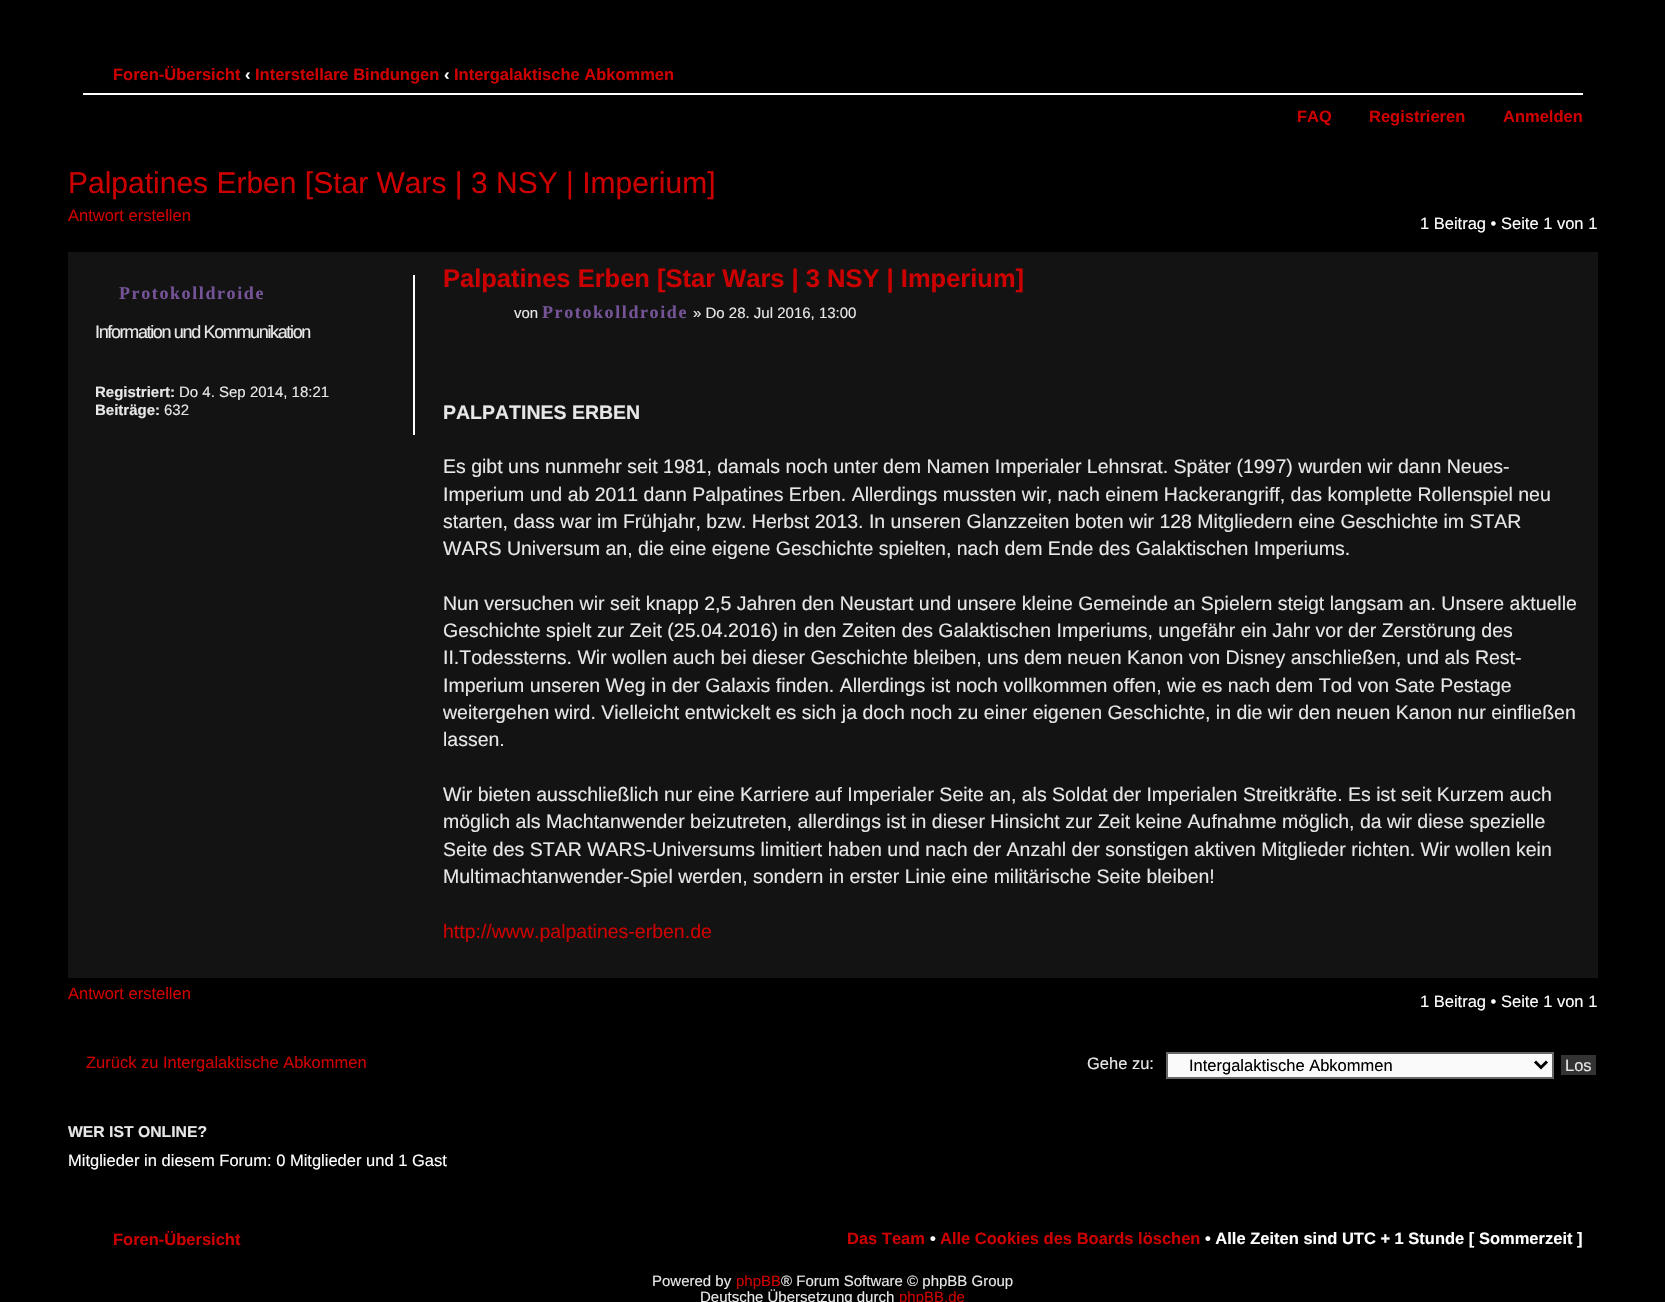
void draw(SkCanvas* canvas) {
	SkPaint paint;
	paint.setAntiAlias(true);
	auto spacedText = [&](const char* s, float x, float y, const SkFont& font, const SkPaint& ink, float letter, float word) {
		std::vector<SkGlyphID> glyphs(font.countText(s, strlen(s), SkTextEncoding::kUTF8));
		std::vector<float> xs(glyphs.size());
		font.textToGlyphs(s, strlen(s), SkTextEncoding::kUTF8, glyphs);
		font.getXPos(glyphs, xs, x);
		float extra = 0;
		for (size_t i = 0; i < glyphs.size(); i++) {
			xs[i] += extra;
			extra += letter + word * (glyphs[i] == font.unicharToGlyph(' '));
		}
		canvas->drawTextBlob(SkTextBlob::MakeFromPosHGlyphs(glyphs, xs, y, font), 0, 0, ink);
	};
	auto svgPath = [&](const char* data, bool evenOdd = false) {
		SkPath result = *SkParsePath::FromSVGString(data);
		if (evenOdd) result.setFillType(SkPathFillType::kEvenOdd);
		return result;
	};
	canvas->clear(0xff000000);
	paint.setColor(0xffffffff);
	canvas->drawRect(SkRect::MakeXYWH(83, 93, 1500, 2), paint);
	SkFont f1(fontMgr->matchFamilyStyle("Liberation Sans", SkFontStyle::Bold()), 16.5);
	f1.setSubpixel(true);
	paint.setColor(0xffcc0000);
	canvas->drawString("Foren-Übersicht", 113, 80, f1, paint);
	paint.setColor(0xffffffff);
	canvas->drawString("‹", 245, 80, f1, paint);
	paint.setColor(0xffcc0000);
	canvas->drawString("Interstellare Bindungen", 255, 80, f1, paint);
	paint.setColor(0xffffffff);
	canvas->drawString("‹", 444, 80, f1, paint);
	paint.setColor(0xffcc0000);
	canvas->drawString("Intergalaktische Abkommen", 454, 80, f1, paint);
	canvas->drawString("FAQ", 1297, 122, f1, paint);
	canvas->drawString("Registrieren", 1369, 122, f1, paint);
	canvas->drawString("Anmelden", 1503, 122, f1, paint);
	SkFont f2(fontMgr->matchFamilyStyle("Liberation Sans", SkFontStyle::Normal()), 30);
	f2.setSubpixel(true);
	canvas->drawString("Palpatines Erben [Star Wars | 3 NSY | Imperium]", 68, 193, f2, paint);
	SkFont f3(fontMgr->matchFamilyStyle("Liberation Sans", SkFontStyle::Normal()), 16.5);
	f3.setSubpixel(true);
	canvas->drawString("Antwort erstellen", 68, 221, f3, paint);
	paint.setColor(0xffffffff);
	canvas->drawString("1 Beitrag • Seite 1 von 1", 1420, 229, f3, paint);
	paint.setColor(0xff131313);
	canvas->drawRect(SkRect::MakeXYWH(68, 252, 1530, 726), paint);
	paint.setColor(0xffffffff);
	canvas->drawRect(SkRect::MakeXYWH(413, 275, 2, 160), paint);
	SkFont f4(fontMgr->matchFamilyStyle("Liberation Serif", SkFontStyle::Bold()), 18);
	f4.setSubpixel(true);
	paint.setColor(0xff755397);
	spacedText("Protokolldroide", 119, 299, f4, paint, 1.6, 0);
	SkFont f5(fontMgr->matchFamilyStyle("Liberation Sans", SkFontStyle::Normal()), 18);
	f5.setSubpixel(true);
	paint.setColor(0xffe7e7e7);
	spacedText("Information und Kommunikation", 95, 338, f5, paint, -1.35, 0);
	SkFont f6(fontMgr->matchFamilyStyle("Liberation Sans", SkFontStyle::Bold()), 15);
	f6.setSubpixel(true);
	canvas->drawString("Registriert:", 95, 397, f6, paint);
	SkFont f7(fontMgr->matchFamilyStyle("Liberation Sans", SkFontStyle::Normal()), 15);
	f7.setSubpixel(true);
	canvas->drawString("Do 4. Sep 2014, 18:21", 179, 397, f7, paint);
	canvas->drawString("Beiträge:", 95, 415, f6, paint);
	canvas->drawString("632", 164, 415, f7, paint);
	SkFont f8(fontMgr->matchFamilyStyle("Liberation Sans", SkFontStyle::Bold()), 25.5);
	f8.setSubpixel(true);
	paint.setColor(0xffcc0000);
	canvas->drawString("Palpatines Erben [Star Wars | 3 NSY | Imperium]", 443, 287, f8, paint);
	paint.setColor(0xffe7e7e7);
	canvas->drawString("von", 514, 318, f7, paint);
	paint.setColor(0xff755397);
	spacedText("Protokolldroide", 542, 318, f4, paint, 1.6, 0);
	paint.setColor(0xffe7e7e7);
	canvas->drawString("» Do 28. Jul 2016, 13:00", 693, 318, f7, paint);
	SkFont f9(fontMgr->matchFamilyStyle("Liberation Sans", SkFontStyle::Bold()), 19.5);
	f9.setSubpixel(true);
	canvas->drawString("PALPATINES ERBEN", 443, 419, f9, paint);
	SkFont f10(fontMgr->matchFamilyStyle("Liberation Sans", SkFontStyle::Normal()), 19.5);
	f10.setSubpixel(true);
	canvas->drawString("Es gibt uns nunmehr seit 1981, damals noch unter dem Namen Imperialer Lehnsrat. Später (1997) wurden wir dann Neues-", 443, 473, f10, paint);
	canvas->drawString("Imperium und ab 2011 dann Palpatines Erben. Allerdings mussten wir, nach einem Hackerangriff, das komplette Rollenspiel neu", 443, 501, f10, paint);
	canvas->drawString("starten, dass war im Frühjahr, bzw. Herbst 2013. In unseren Glanzzeiten boten wir 128 Mitgliedern eine Geschichte im STAR", 443, 528, f10, paint);
	canvas->drawString("WARS Universum an, die eine eigene Geschichte spielten, nach dem Ende des Galaktischen Imperiums.", 443, 555, f10, paint);
	canvas->drawString("Nun versuchen wir seit knapp 2,5 Jahren den Neustart und unsere kleine Gemeinde an Spielern steigt langsam an. Unsere aktuelle", 443, 610, f10, paint);
	canvas->drawString("Geschichte spielt zur Zeit (25.04.2016) in den Zeiten des Galaktischen Imperiums, ungefähr ein Jahr vor der Zerstörung des", 443, 637, f10, paint);
	canvas->drawString("II.Todessterns. Wir wollen auch bei dieser Geschichte bleiben, uns dem neuen Kanon von Disney anschließen, und als Rest-", 443, 664, f10, paint);
	canvas->drawString("Imperium unseren Weg in der Galaxis finden. Allerdings ist noch vollkommen offen, wie es nach dem Tod von Sate Pestage", 443, 692, f10, paint);
	canvas->drawString("weitergehen wird. Vielleicht entwickelt es sich ja doch noch zu einer eigenen Geschichte, in die wir den neuen Kanon nur einfließen", 443, 719, f10, paint);
	canvas->drawString("lassen.", 443, 746, f10, paint);
	canvas->drawString("Wir bieten ausschließlich nur eine Karriere auf Imperialer Seite an, als Soldat der Imperialen Streitkräfte. Es ist seit Kurzem auch", 443, 801, f10, paint);
	canvas->drawString("möglich als Machtanwender beizutreten, allerdings ist in dieser Hinsicht zur Zeit keine Aufnahme möglich, da wir diese spezielle", 443, 828, f10, paint);
	canvas->drawString("Seite des STAR WARS-Universums limitiert haben und nach der Anzahl der sonstigen aktiven Mitglieder richten. Wir wollen kein", 443, 856, f10, paint);
	canvas->drawString("Multimachtanwender-Spiel werden, sondern in erster Linie eine militärische Seite bleiben!", 443, 883, f10, paint);
	paint.setColor(0xffcc0000);
	canvas->drawString("http://www.palpatines-erben.de", 443, 938, f10, paint);
	canvas->drawString("Antwort erstellen", 68, 999, f3, paint);
	paint.setColor(0xffffffff);
	canvas->drawString("1 Beitrag • Seite 1 von 1", 1420, 1007, f3, paint);
	paint.setColor(0xffcc0000);
	canvas->drawString("Zurück zu Intergalaktische Abkommen", 86, 1068, f3, paint);
	paint.setColor(0xffe7e7e7);
	canvas->drawString("Gehe zu:", 1087, 1069, f3, paint);
	paint.setColor(0xfffafafa);
	canvas->drawRect(SkRect::MakeXYWH(1167, 1053, 386, 25), paint);
	paint.setStroke(true);
	paint.setStrokeWidth(2);
	paint.setColor(0xff666666);
	canvas->drawRect(SkRect::MakeXYWH(1167, 1053, 386, 25), paint);
	paint.setStrokeWidth(3);
	paint.setColor(0xff000000);
	canvas->drawPath(svgPath("M1535 1061.5L1541 1067.5L1547 1061.5"), paint);
	paint.setStroke(false);
	canvas->drawString("Intergalaktische Abkommen", 1189, 1071, f3, paint);
	paint.setColor(0xff333333);
	canvas->drawRect(SkRect::MakeXYWH(1561, 1055, 35, 20), paint);
	paint.setColor(0xffe7e7e7);
	canvas->drawString("Los", 1565, 1071, f3, paint);
	SkFont f11(fontMgr->matchFamilyStyle("Liberation Sans", SkFontStyle::Bold()), 15.75);
	f11.setSubpixel(true);
	canvas->drawString("WER IST ONLINE?", 68, 1137, f11, paint);
	paint.setColor(0xffffffff);
	canvas->drawString("Mitglieder in diesem Forum: 0 Mitglieder und 1 Gast", 68, 1166, f3, paint);
	paint.setColor(0xffcc0000);
	canvas->drawString("Foren-Übersicht", 113, 1245, f1, paint);
	canvas->drawString("Das Team", 847, 1244, f1, paint);
	paint.setColor(0xffffffff);
	canvas->drawString("•", 930, 1244, f1, paint);
	paint.setColor(0xffcc0000);
	canvas->drawString("Alle Cookies des Boards löschen", 940, 1244, f1, paint);
	paint.setColor(0xffffffff);
	canvas->drawString("• Alle Zeiten sind UTC + 1 Stunde [ Sommerzeit ]", 1205, 1244, f1, paint);
	paint.setColor(0xffe7e7e7);
	canvas->drawString("Powered by", 652, 1286, f7, paint);
	paint.setColor(0xffcc0000);
	canvas->drawString("phpBB", 736, 1286, f7, paint);
	paint.setColor(0xffe7e7e7);
	canvas->drawString("® Forum Software © phpBB Group", 781, 1286, f7, paint);
	canvas->drawString("Deutsche Übersetzung durch", 700, 1302, f7, paint);
	paint.setColor(0xffcc0000);
	canvas->drawString("phpBB.de", 899, 1302, f7, paint);
}
